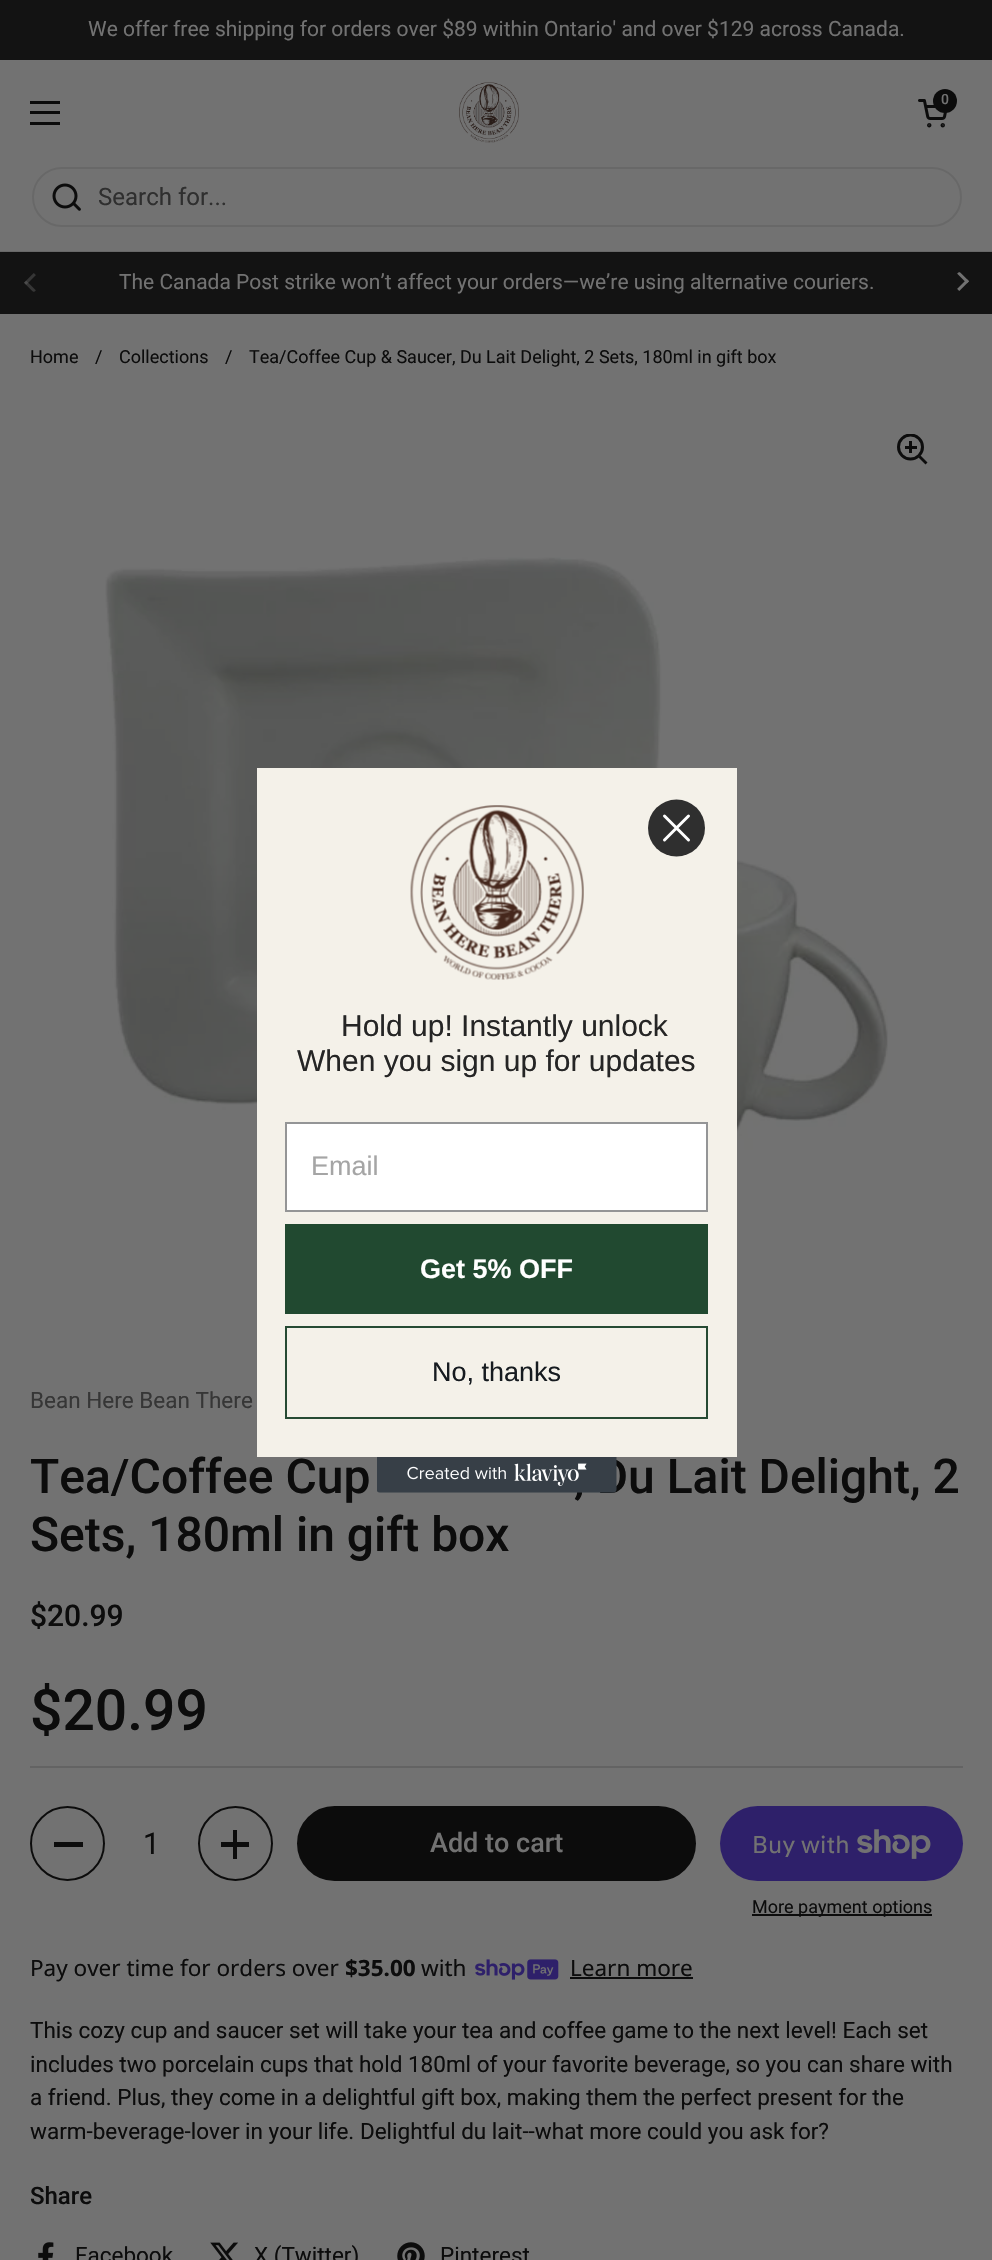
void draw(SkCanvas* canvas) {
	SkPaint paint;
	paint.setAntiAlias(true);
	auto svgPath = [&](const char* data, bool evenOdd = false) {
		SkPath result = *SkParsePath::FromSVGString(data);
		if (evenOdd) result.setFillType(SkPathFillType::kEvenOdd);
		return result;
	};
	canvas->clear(0xff727272);
	paint.setColor(0xff686868);
	canvas->drawRect(SkRect::MakeXYWH(0, 251, 992, 1), paint);
	paint.setColor(0xff131313);
	canvas->drawRect(SkRect::MakeXYWH(0, 0, 992, 60), paint);
	SkFont f1(fontMgr->matchFamilyStyle("Roboto", SkFontStyle::Normal()), 21);
	f1.setSubpixel(true);
	paint.setColor(0xff727272);
	canvas->drawString("We offer free shipping for orders over $89 within Ontario' and over $129 across Canada.", 88, 36, f1, paint);
	canvas->drawImageRect(SkImages::DeferredFromEncodedData(SkData::MakeFromFileName("img1.png")), SkRect::MakeXYWH(459, 82, 60, 61), SkSamplingOptions());
	canvas->drawImageRect(SkImages::DeferredFromEncodedData(SkData::MakeFromFileName("img2.png")), SkRect::MakeXYWH(918, 99, 29, 29), SkSamplingOptions());
	paint.setColor(0xff0c0c0c);
	canvas->drawCircle(945, 101, 12, paint);
	SkFont f2(fontMgr->matchFamilyStyle("Roboto", SkFontStyle(500, SkFontStyle::kNormal_Width, SkFontStyle::kUpright_Slant)), 14);
	f2.setSubpixel(true);
	paint.setColor(0xff727272);
	canvas->drawString("0", 941, 104, f2, paint);
	paint.setColor(0xff0c0c0c);
	canvas->drawRect(SkRect::MakeXYWH(30, 101, 30, 3), paint);
	canvas->drawRect(SkRect::MakeXYWH(30, 111, 30, 3), paint);
	canvas->drawRect(SkRect::MakeXYWH(30, 122, 30, 3), paint);
	paint.setStroke(true);
	paint.setStrokeWidth(2);
	paint.setColor(0xff686868);
	canvas->drawRoundRect(SkRect::MakeXYWH(33, 168, 928, 58), 29, 29, paint);
	canvas->drawImageRect(SkImages::DeferredFromEncodedData(SkData::MakeFromFileName("img3.png")), SkRect::MakeXYWH(52, 183, 29, 28), SkSamplingOptions());
	SkFont f3(fontMgr->matchFamilyStyle("Roboto", SkFontStyle::Normal()), 24);
	f3.setSubpixel(true);
	paint.setStroke(false);
	paint.setColor(0xff2f2f2f);
	canvas->drawString("Search for...", 98, 205, f3, paint);
	paint.setColor(0xff131313);
	canvas->drawRect(SkRect::MakeXYWH(0, 253, 992, 61), paint);
	paint.setColor(0xff121212);
	canvas->drawRect(SkRect::MakeXYWH(0, 252, 992, 1), paint);
	canvas->drawImageRect(SkImages::DeferredFromEncodedData(SkData::MakeFromFileName("img4.png")), SkRect::MakeXYWH(24, 273, 12, 19), SkSamplingOptions());
	paint.setColor(0xff727272);
	canvas->drawString("The Canada Post strike won’t affect your orders—we’re using alternative couriers.", 119, 289, f1, paint);
	canvas->drawImageRect(SkImages::DeferredFromEncodedData(SkData::MakeFromFileName("img5.png")), SkRect::MakeXYWH(957, 272, 12, 19), SkSamplingOptions());
	SkFont f4(fontMgr->matchFamilyStyle("Roboto", SkFontStyle::Normal()), 18);
	f4.setSubpixel(true);
	paint.setColor(0xff0c0c0c);
	canvas->drawString("Home", 30, 363, f4, paint);
	canvas->drawString("/", 95, 363, f4, paint);
	canvas->drawString("Collections", 119, 363, f4, paint);
	canvas->drawString("/", 225, 363, f4, paint);
	canvas->drawString("Tea/Coffee Cup & Saucer, Du Lait Delight, 2 Sets, 180ml in gift box", 249, 363, f4, paint);
	canvas->save();
	canvas->clipRect(SkRect::MakeXYWH(897, 434, 32, 31));
	paint.setStroke(true);
	paint.setStrokeWidth(3);
	canvas->drawCircle(910.5, 447, 12, paint);
	canvas->restore();
	paint.setStroke(false);
	canvas->drawRect(SkRect::MakeXYWH(909, 441, 3, 12), paint);
	canvas->drawRect(SkRect::MakeXYWH(905, 446, 12, 3), paint);
	canvas->drawPath(svgPath("M918.5 457.5L920.5 455.5L927.5 462.5L925.5 464.5Z"), paint);
	canvas->drawImageRect(SkImages::DeferredFromEncodedData(SkData::MakeFromFileName("img6.png")), SkRect::MakeXYWH(105, 557, 783, 628), SkSamplingOptions());
	SkFont f5(fontMgr->matchFamilyStyle("Roboto", SkFontStyle::Normal()), 22.5);
	f5.setSubpixel(true);
	paint.setColor(0xff363636);
	canvas->drawString("Bean Here Bean There", 30, 1408, f5, paint);
	SkFont f6(fontMgr->matchFamilyStyle("Roboto", SkFontStyle(500, SkFontStyle::kNormal_Width, SkFontStyle::kUpright_Slant)), 48);
	f6.setSubpixel(true);
	paint.setColor(0xff0c0c0c);
	canvas->drawString("Tea/Coffee Cup", 30, 1493, f6, paint);
	canvas->drawString(", Du Lait Delight, 2", 574, 1493, f6, paint);
	canvas->drawString("Sets, 180ml in gift box", 30, 1551, f6, paint);
	SkFont f7(fontMgr->matchFamilyStyle("Roboto", SkFontStyle(500, SkFontStyle::kNormal_Width, SkFontStyle::kUpright_Slant)), 30);
	f7.setSubpixel(true);
	canvas->drawString("$20.99", 30, 1626, f7, paint);
	SkFont f8(fontMgr->matchFamilyStyle("Roboto", SkFontStyle(500, SkFontStyle::kNormal_Width, SkFontStyle::kUpright_Slant)), 57);
	f8.setSubpixel(true);
	canvas->drawString("$20.99", 30, 1730, f8, paint);
	paint.setColor(0xff636363);
	canvas->drawRect(SkRect::MakeXYWH(30, 1766, 933, 2), paint);
	paint.setStroke(true);
	paint.setStrokeWidth(2);
	paint.setColor(0xff0c0c0c);
	canvas->drawCircle(67.5, 1843.5, 36.5, paint);
	paint.setStroke(false);
	canvas->drawRect(SkRect::MakeXYWH(54, 1842, 29, 5), paint);
	SkFont f9(fontMgr->matchFamilyStyle("Roboto", SkFontStyle::Normal()), 30);
	f9.setSubpixel(true);
	canvas->drawString("1", 143, 1854, f9, paint);
	paint.setStroke(true);
	canvas->drawCircle(235.5, 1843.5, 36.5, paint);
	paint.setStroke(false);
	canvas->drawRect(SkRect::MakeXYWH(233, 1830, 4, 29), paint);
	canvas->drawRect(SkRect::MakeXYWH(221, 1842, 28, 5), paint);
	canvas->drawRoundRect(SkRect::MakeXYWH(298, 1807, 397, 73), 36.5, 36.5, paint);
	paint.setStroke(true);
	canvas->drawRoundRect(SkRect::MakeXYWH(298, 1807, 397, 73), 36.5, 36.5, paint);
	SkFont f10(fontMgr->matchFamilyStyle("Roboto", SkFontStyle(500, SkFontStyle::kNormal_Width, SkFontStyle::kUpright_Slant)), 27);
	f10.setSubpixel(true);
	paint.setStroke(false);
	paint.setColor(0xff727272);
	canvas->drawString("Add to cart", 430, 1852, f10, paint);
	paint.setColor(0xff2e206a);
	canvas->drawRoundRect(SkRect::MakeXYWH(720, 1806, 243, 75), 37.5, 37.5, paint);
	SkFont f11(fontMgr->matchFamilyStyle("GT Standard", SkFontStyle::Normal()), 24);
	f11.setSubpixel(true);
	paint.setColor(0xff727272);
	canvas->drawString("Buy with", 752, 1853, f11, paint);
	canvas->drawImageRect(SkImages::DeferredFromEncodedData(SkData::MakeFromFileName("img7.png")), SkRect::MakeXYWH(857, 1829, 74, 30), SkSamplingOptions());
	paint.setColor(0xff0c0c0c);
	canvas->drawRect(SkRect::MakeXYWH(752, 1914, 180, 2), paint);
	canvas->drawString("More payment options", 752, 1913, f4, paint);
	SkFont f12(fontMgr->matchFamilyStyle("Noto Sans", SkFontStyle::Normal()), 22.5);
	f12.setSubpixel(true);
	canvas->drawString("Pay over time for orders over", 30, 1976, f12, paint);
	SkFont f13(fontMgr->matchFamilyStyle("Noto Sans", SkFontStyle::Bold()), 22.5);
	f13.setSubpixel(true);
	canvas->drawString("$35.00", 345, 1976, f13, paint);
	canvas->drawString("with", 421, 1976, f12, paint);
	canvas->drawImageRect(SkImages::DeferredFromEncodedData(SkData::MakeFromFileName("img8.png")), SkRect::MakeXYWH(475, 1959, 84, 21), SkSamplingOptions());
	canvas->drawString("Learn more", 570, 1976, f12, paint);
	canvas->drawRect(SkRect::MakeXYWH(570, 1977, 123, 2), paint);
	canvas->drawString("This cozy cup and saucer set will take your tea and coffee game to the next level! Each set", 30, 2038, f5, paint);
	canvas->drawString("includes two porcelain cups that hold 180ml of your favorite beverage, so you can share with", 30, 2072, f5, paint);
	canvas->drawString("a friend. Plus, they come in a delightful gift box, making them the perfect present for the", 30, 2105, f5, paint);
	canvas->drawString("warm-beverage-lover in your life. Delightful du lait--what more could you ask for?", 30, 2139, f5, paint);
	SkFont f14(fontMgr->matchFamilyStyle("Roboto", SkFontStyle(500, SkFontStyle::kNormal_Width, SkFontStyle::kUpright_Slant)), 24);
	f14.setSubpixel(true);
	canvas->drawString("Share", 30, 2204, f14, paint);
	canvas->drawImageRect(SkImages::DeferredFromEncodedData(SkData::MakeFromFileName("img9.png")), SkRect::MakeXYWH(38, 2242, 16, 18), SkSamplingOptions());
	canvas->drawString("Facebook", 75, 2263, f5, paint);
	canvas->drawImageRect(SkImages::DeferredFromEncodedData(SkData::MakeFromFileName("img10.png")), SkRect::MakeXYWH(210, 2242, 28, 18), SkSamplingOptions());
	canvas->drawString("X (Twitter)", 254, 2263, f5, paint);
	canvas->drawImageRect(SkImages::DeferredFromEncodedData(SkData::MakeFromFileName("img11.png")), SkRect::MakeXYWH(397, 2242, 28, 18), SkSamplingOptions());
	canvas->drawString("Pinterest", 440, 2263, f5, paint);
	paint.setColor(0xfff4f1e9);
	canvas->drawRect(SkRect::MakeXYWH(257, 768, 480, 689), paint);
	paint.setColor(0xff2f2f2f);
	canvas->drawCircle(676.5, 828, 28.5, paint);
	paint.setStroke(true);
	paint.setStrokeWidth(3);
	paint.setStrokeCap(SkPaint::kRound_Cap);
	paint.setStrokeJoin(SkPaint::kRound_Join);
	paint.setColor(0xffffffff);
	canvas->drawPath(svgPath("M664.5 816L688.5 840M664.5 840L688.5 816Z"), paint);
	canvas->drawImageRect(SkImages::DeferredFromEncodedData(SkData::MakeFromFileName("img12.png")), SkRect::MakeXYWH(410, 805, 174, 175), SkSamplingOptions());
	SkFont f15(fontMgr->matchFamilyStyle("Liberation Sans", SkFontStyle::Normal()), 30);
	f15.setSubpixel(true);
	paint.setStroke(false);
	paint.setColor(0xff252525);
	canvas->drawString("Hold up! Instantly unlock", 341, 1036, f15, paint);
	canvas->drawString("When you sign up for updates", 297, 1071, f15, paint);
	paint.setColor(0xffffffff);
	canvas->drawRect(SkRect::MakeXYWH(286, 1123, 421, 88), paint);
	paint.setStroke(true);
	paint.setStrokeWidth(2);
	paint.setStrokeCap(SkPaint::kButt_Cap);
	paint.setStrokeJoin(SkPaint::kMiter_Join);
	paint.setColor(0xff949596);
	canvas->drawRect(SkRect::MakeXYWH(286, 1123, 421, 88), paint);
	SkFont f16(fontMgr->matchFamilyStyle("Liberation Sans", SkFontStyle::Normal()), 27);
	f16.setSubpixel(true);
	paint.setStroke(false);
	paint.setColor(0xffa5a5a5);
	canvas->drawString("Email", 311, 1175, f16, paint);
	paint.setColor(0xff214930);
	canvas->drawRect(SkRect::MakeXYWH(285, 1224, 423, 90), paint);
	SkFont f17(fontMgr->matchFamilyStyle("Liberation Sans", SkFontStyle::Bold()), 27);
	f17.setSubpixel(true);
	paint.setColor(0xffffffff);
	canvas->drawString("Get 5% OFF", 420, 1278, f17, paint);
	paint.setStroke(true);
	paint.setColor(0xff264a33);
	canvas->drawRect(SkRect::MakeXYWH(286, 1327, 421, 91), paint);
	paint.setStroke(false);
	paint.setColor(0xff161b20);
	canvas->drawString("No, thanks", 432, 1381, f16, paint);
	canvas->drawImageRect(SkImages::DeferredFromEncodedData(SkData::MakeFromFileName("img13.png")), SkRect::MakeXYWH(377, 1457, 240, 36), SkSamplingOptions());
}
